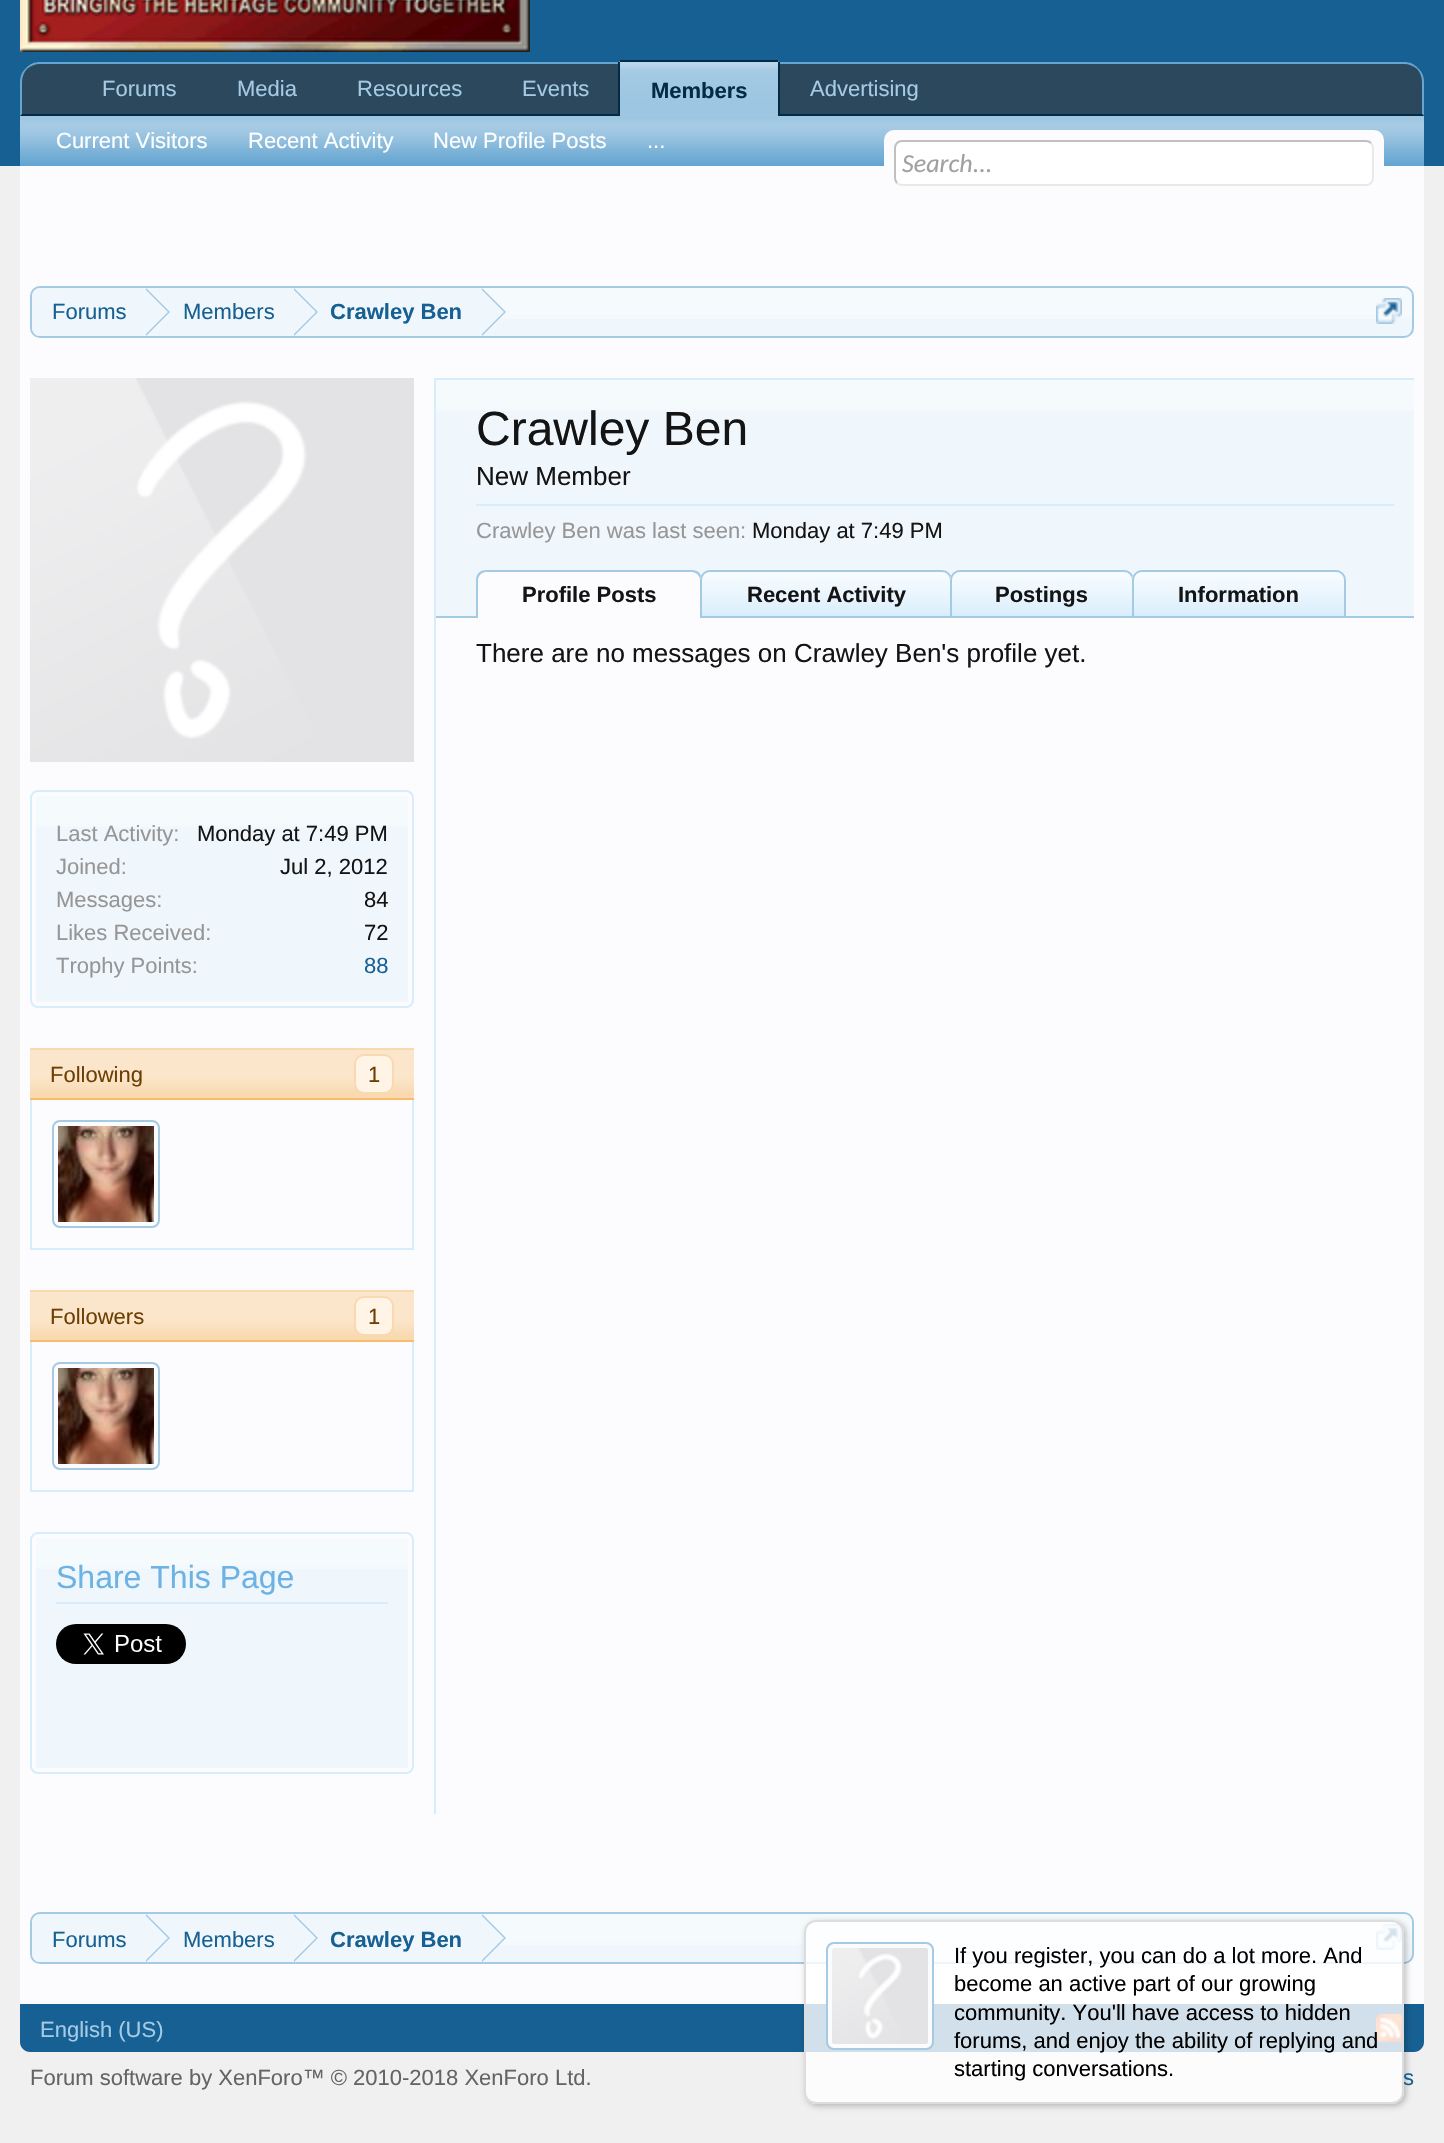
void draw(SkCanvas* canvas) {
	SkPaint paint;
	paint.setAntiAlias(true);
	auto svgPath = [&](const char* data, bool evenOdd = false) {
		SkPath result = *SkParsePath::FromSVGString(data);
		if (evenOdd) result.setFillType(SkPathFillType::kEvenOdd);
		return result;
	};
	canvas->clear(0xfff0f0f0);
	paint.setColor(0xff176093);
	canvas->drawRect(SkRect::MakeXYWH(0, 0, 1444, 166), paint);
	canvas->drawImageRect(SkImages::DeferredFromEncodedData(SkData::MakeFromFileName("img1.png")), SkRect::MakeXYWH(20, 0, 510, 52), SkSamplingOptions());
	paint.setColor(0xff2b485c);
	canvas->drawPath(svgPath("M40 62H1404C1415 62 1424 71 1424 82V116H20V82C20 71 29 62 40 62Z"), paint);
	paint.setColor(0xff65a5d1);
	canvas->drawPath(svgPath("M40 62C34 62 30 64 26 68L27 69C30 66 35 64 40 64H1404C1409 64 1414 66 1417 69L1418 68C1414 64 1410 62 1404 62Z"), paint);
	canvas->drawPath(svgPath("M1424 116V82C1424 76 1422 72 1418 68L1417 69C1420 72 1422 77 1422 82V114Z"), paint);
	paint.setColor(0xff032a46);
	canvas->drawPath(svgPath("M1424 116L1422 114H22L20 116Z"), paint);
	paint.setColor(0xff65a5d1);
	canvas->drawPath(svgPath("M20 116L22 114V82C22 77 24 72 27 69L26 68C22 72 20 76 20 82Z"), paint);
	SkFont f1(fontMgr->matchFamilyStyle("Liberation Sans", SkFontStyle::Normal()), 22);
	f1.setSubpixel(true);
	paint.setColor(0xffa5cae4);
	canvas->drawString("Forums", 102, 96, f1, paint);
	canvas->drawString("Media", 237, 96, f1, paint);
	canvas->drawString("Resources", 357, 96, f1, paint);
	canvas->drawString("Events", 522, 96, f1, paint);
	canvas->drawString("Advertising", 810, 96, f1, paint);
	paint.setColor(0xff65a5d1);
	canvas->drawPath(svgPath("M622 60H776C778 60 780 62 780 64V116H618V64C618 62 620 60 622 60Z"), paint);
	canvas->drawImageRect(SkImages::DeferredFromEncodedData(SkData::MakeFromFileName("img2.png")), SkRect::MakeXYWH(620, 62, 158, 54), SkSamplingOptions());
	paint.setColor(0xff032a46);
	canvas->drawRect(SkRect::MakeXYWH(620, 60, 158, 2), paint);
	canvas->drawRect(SkRect::MakeXYWH(778, 62, 2, 54), paint);
	canvas->drawRect(SkRect::MakeXYWH(618, 62, 2, 54), paint);
	SkFont f2(fontMgr->matchFamilyStyle("Liberation Sans", SkFontStyle::Bold()), 22);
	f2.setSubpixel(true);
	canvas->drawString("Members", 651, 98, f2, paint);
	paint.setColor(0xff65a5d1);
	canvas->drawRect(SkRect::MakeXYWH(20, 116, 1404, 50), paint);
	canvas->drawImageRect(SkImages::DeferredFromEncodedData(SkData::MakeFromFileName("img3.png")), SkRect::MakeXYWH(20, 116, 1404, 47), SkSamplingOptions());
	paint.setColor(0xffffffff);
	canvas->drawString("Current Visitors", 56, 148, f1, paint);
	canvas->drawString("Recent Activity", 248, 148, f1, paint);
	canvas->drawString("New Profile Posts", 433, 148, f1, paint);
	canvas->drawString("...", 647, 148, f1, paint);
	paint.setColor(0xfffcfcff);
	canvas->drawRect(SkRect::MakeXYWH(20, 166, 1404, 1838), paint);
	canvas->drawRoundRect(SkRect::MakeXYWH(884, 130, 500, 56), 10, 10, paint);
	paint.setColor(0xffffffff);
	canvas->drawRoundRect(SkRect::MakeXYWH(894, 140, 480, 46), 8, 8, paint);
	paint.setStroke(true);
	paint.setStrokeWidth(2);
	paint.setColor(0xffe9e9e9);
	canvas->drawPath(svgPath("M1371 143C1372.5 144.5 1373 146 1373 148V178C1373 180 1372.5 181.5 1371 183C1369.5 184.5 1368 185 1366 185H902C900 185 898.5 184.5 897 183"), paint);
	paint.setColor(0xffc0c0c0);
	canvas->drawPath(svgPath("M897 183C895.5 181.5 895 180 895 178V148C895 146 895.5 144.5 897 143C898.5 141.5 900 141 902 141H1366C1368 141 1369.5 141.5 1371 143"), paint);
	SkFont f3(fontMgr->matchFamilyStyle("Carlito", SkFontStyle::Italic()), 26);
	f3.setSubpixel(true);
	paint.setStroke(false);
	paint.setColor(0xffa0a0a0);
	canvas->drawString("Search...", 902, 172, f3, paint);
	paint.setColor(0xfff0f7fc);
	canvas->drawRoundRect(SkRect::MakeXYWH(30, 286, 1384, 52), 10, 10, paint);
	canvas->drawImageRect(SkImages::DeferredFromEncodedData(SkData::MakeFromFileName("img4.png")), SkRect::MakeXYWH(30, 288, 1384, 31), SkSamplingOptions());
	paint.setStroke(true);
	paint.setColor(0xffa5cae4);
	canvas->drawRoundRect(SkRect::MakeXYWH(31, 287, 1382, 50), 9, 9, paint);
	canvas->save();
	canvas->clipPath(svgPath("M40 288H1404C1408.5 288 1412 291.5 1412 296V328C1412 332.5 1408.5 336 1404 336H40C35.5 336 32 332.5 32 328V296C32 291.5 35.5 288 40 288Z"), true);
	paint.setStroke(false);
	paint.setColor(0xfff0f7fc);
	canvas->drawPath(svgPath("M42 288H146V338H42C36.5 338 32 333.5 32 328V298C32 292.5 36.5 288 42 288Z"), paint);
	canvas->restore();
	paint.setColor(0xff176093);
	canvas->drawString("Forums", 52, 319, f1, paint);
	paint.setColor(0xfff0f7fc);
	canvas->drawRect(SkRect::MakeXYWH(146, 288, 336, 31), paint);
	paint.setColor(0xffa5cae4);
	canvas->drawPath(svgPath("M146 336V288L170 312Z"), paint);
	paint.setColor(0xfff0f7fc);
	canvas->drawPath(svgPath("M144 336V288L168 312Z"), paint);
	paint.setColor(0xff176093);
	canvas->drawString("Members", 183, 319, f1, paint);
	paint.setColor(0xffa5cae4);
	canvas->drawPath(svgPath("M294 336V288L318 312Z"), paint);
	paint.setColor(0xfff0f7fc);
	canvas->drawPath(svgPath("M292 336V288L316 312Z"), paint);
	paint.setColor(0xff176093);
	canvas->drawString("Crawley Ben", 330, 319, f2, paint);
	paint.setColor(0xffa5cae4);
	canvas->drawPath(svgPath("M482 336V288L506 312Z"), paint);
	paint.setColor(0xfff0f7fc);
	canvas->drawPath(svgPath("M480 336V288L504 312Z"), paint);
	canvas->drawImageRect(SkImages::DeferredFromEncodedData(SkData::MakeFromFileName("img5.png")), SkRect::MakeXYWH(1376, 298, 26, 26), SkSamplingOptions());
	paint.setColor(0xffd7edfc);
	canvas->drawRect(SkRect::MakeXYWH(436, 378, 978, 2), paint);
	paint.setColor(0xfff0f7fc);
	canvas->drawRect(SkRect::MakeXYWH(436, 380, 978, 236), paint);
	canvas->drawImageRect(SkImages::DeferredFromEncodedData(SkData::MakeFromFileName("img6.png")), SkRect::MakeXYWH(436, 380, 978, 31), SkSamplingOptions());
	SkFont f4(fontMgr->matchFamilyStyle("Liberation Sans", SkFontStyle::Normal()), 48);
	f4.setSubpixel(true);
	paint.setColor(0xff141414);
	canvas->drawString("Crawley Ben", 476, 445, f4, paint);
	SkFont f5(fontMgr->matchFamilyStyle("Liberation Sans", SkFontStyle::Normal()), 26);
	f5.setSubpixel(true);
	canvas->drawString("New Member", 476, 485, f5, paint);
	paint.setColor(0xffd7edfc);
	canvas->drawRect(SkRect::MakeXYWH(476, 504, 918, 2), paint);
	paint.setColor(0xff969696);
	canvas->drawString("Crawley Ben was last seen:", 476, 538, f1, paint);
	paint.setColor(0xff141414);
	canvas->drawString("Monday at 7:49 PM", 752, 538, f1, paint);
	paint.setColor(0xffa5cae4);
	canvas->drawRect(SkRect::MakeXYWH(436, 616, 978, 2), paint);
	paint.setColor(0xfffcfcff);
	canvas->drawPath(svgPath("M486 570H692C697.5 570 702 574.5 702 580V618H476V580C476 574.5 480.5 570 486 570Z"), paint);
	paint.setColor(0xffa5cae4);
	canvas->drawPath(svgPath("M486 570H692C698 570 702 574 702 580V618H476V580C476 574 480 570 486 570ZM486 572H692C696 572 700 576 700 580V618H478V580C478 576 482 572 486 572Z", true), paint);
	paint.setColor(0xff141414);
	canvas->drawString("Profile Posts", 522, 602, f2, paint);
	paint.setColor(0xffd7edfc);
	canvas->drawPath(svgPath("M710 570H942C947.5 570 952 574.5 952 580V618H700V580C700 574.5 704.5 570 710 570Z"), paint);
	canvas->drawImageRect(SkImages::DeferredFromEncodedData(SkData::MakeFromFileName("img7.png")), SkRect::MakeXYWH(700, 572, 251, 42), SkSamplingOptions());
	paint.setStroke(true);
	paint.setColor(0xffa5cae4);
	canvas->drawPath(svgPath("M710 571H942C947 571 951 575 951 580V617H701V580C701 575 705 571 710 571Z"), paint);
	paint.setStroke(false);
	paint.setColor(0xff141414);
	canvas->drawString("Recent Activity", 747, 602, f2, paint);
	paint.setColor(0xffd7edfc);
	canvas->drawPath(svgPath("M960 570H1124C1129.5 570 1134 574.5 1134 580V618H950V580C950 574.5 954.5 570 960 570Z"), paint);
	canvas->drawImageRect(SkImages::DeferredFromEncodedData(SkData::MakeFromFileName("img8.png")), SkRect::MakeXYWH(950, 572, 183, 42), SkSamplingOptions());
	paint.setStroke(true);
	paint.setColor(0xffa5cae4);
	canvas->drawPath(svgPath("M960 571H1124C1129 571 1133 575 1133 580V617H951V580C951 575 955 571 960 571Z"), paint);
	paint.setStroke(false);
	paint.setColor(0xff141414);
	canvas->drawString("Postings", 995, 602, f2, paint);
	paint.setColor(0xffd7edfc);
	canvas->drawPath(svgPath("M1142 570H1336C1341.5 570 1346 574.5 1346 580V618H1132V580C1132 574.5 1136.5 570 1142 570Z"), paint);
	canvas->drawImageRect(SkImages::DeferredFromEncodedData(SkData::MakeFromFileName("img9.png")), SkRect::MakeXYWH(1132, 572, 214, 42), SkSamplingOptions());
	paint.setStroke(true);
	paint.setColor(0xffa5cae4);
	canvas->drawPath(svgPath("M1142 571H1336C1341 571 1345 575 1345 580V617H1133V580C1133 575 1137 571 1142 571Z"), paint);
	paint.setStroke(false);
	paint.setColor(0xff141414);
	canvas->drawString("Information", 1178, 602, f2, paint);
	canvas->drawString("There are no messages on Crawley Ben's profile yet.", 476, 662, f5, paint);
	paint.setColor(0xffd7edfc);
	canvas->drawRect(SkRect::MakeXYWH(434, 378, 2, 1436), paint);
	canvas->drawImageRect(SkImages::DeferredFromEncodedData(SkData::MakeFromFileName("img10.png")), SkRect::MakeXYWH(30, 378, 384, 384), SkSamplingOptions());
	paint.setStroke(true);
	canvas->drawRoundRect(SkRect::MakeXYWH(31, 791, 382, 216), 7, 7, paint);
	paint.setStroke(false);
	paint.setColor(0xfff0f7fc);
	canvas->drawRect(SkRect::MakeXYWH(36, 796, 372, 206), paint);
	canvas->drawImageRect(SkImages::DeferredFromEncodedData(SkData::MakeFromFileName("img11.png")), SkRect::MakeXYWH(36, 796, 372, 31), SkSamplingOptions());
	paint.setColor(0xff969696);
	canvas->drawString("Last Activity:", 56, 841, f1, paint);
	paint.setColor(0xff141414);
	canvas->drawString("Monday at 7:49 PM", 197, 841, f1, paint);
	paint.setColor(0xff969696);
	canvas->drawString("Joined:", 56, 874, f1, paint);
	paint.setColor(0xff141414);
	canvas->drawString("Jul 2, 2012", 280, 874, f1, paint);
	paint.setColor(0xff969696);
	canvas->drawString("Messages:", 56, 907, f1, paint);
	paint.setColor(0xff141414);
	canvas->drawString("84", 364, 907, f1, paint);
	paint.setColor(0xff969696);
	canvas->drawString("Likes Received:", 56, 940, f1, paint);
	paint.setColor(0xff141414);
	canvas->drawString("72", 364, 940, f1, paint);
	paint.setColor(0xff969696);
	canvas->drawString("Trophy Points:", 56, 973, f1, paint);
	paint.setColor(0xff176093);
	canvas->drawString("88", 364, 973, f1, paint);
	paint.setColor(0xfff9d9b0);
	canvas->drawRect(SkRect::MakeXYWH(30, 1048, 384, 50), paint);
	canvas->drawImageRect(SkImages::DeferredFromEncodedData(SkData::MakeFromFileName("img12.png")), SkRect::MakeXYWH(30, 1050, 384, 43), SkSamplingOptions());
	paint.setColor(0xfff9bc6d);
	canvas->drawRect(SkRect::MakeXYWH(30, 1098, 384, 2), paint);
	paint.setColor(0xff6d3f03);
	canvas->drawString("Following", 50, 1082, f1, paint);
	paint.setColor(0xfffff4e5);
	canvas->drawRoundRect(SkRect::MakeXYWH(355, 1055, 38, 38), 9, 9, paint);
	paint.setStroke(true);
	paint.setColor(0xfff9d9b0);
	canvas->drawRoundRect(SkRect::MakeXYWH(355, 1055, 38, 38), 9, 9, paint);
	paint.setStroke(false);
	paint.setColor(0xff6d3f03);
	canvas->drawString("1", 368, 1082, f1, paint);
	paint.setColor(0xffd7edfc);
	canvas->drawRect(SkRect::MakeXYWH(412, 1100, 2, 150), paint);
	canvas->drawRect(SkRect::MakeXYWH(30, 1248, 384, 2), paint);
	canvas->drawRect(SkRect::MakeXYWH(30, 1100, 2, 150), paint);
	canvas->drawImageRect(SkImages::DeferredFromEncodedData(SkData::MakeFromFileName("img13.png")), SkRect::MakeXYWH(58, 1126, 96, 96), SkSamplingOptions());
	paint.setStroke(true);
	paint.setColor(0xffa5cae4);
	canvas->drawRoundRect(SkRect::MakeXYWH(53, 1121, 106, 106), 7, 7, paint);
	paint.setStroke(false);
	paint.setColor(0xfff9d9b0);
	canvas->drawRect(SkRect::MakeXYWH(30, 1290, 384, 50), paint);
	canvas->drawImageRect(SkImages::DeferredFromEncodedData(SkData::MakeFromFileName("img12.png")), SkRect::MakeXYWH(30, 1292, 384, 43), SkSamplingOptions());
	paint.setColor(0xfff9bc6d);
	canvas->drawRect(SkRect::MakeXYWH(30, 1340, 384, 2), paint);
	paint.setColor(0xff6d3f03);
	canvas->drawString("Followers", 50, 1324, f1, paint);
	paint.setColor(0xfffff4e5);
	canvas->drawRoundRect(SkRect::MakeXYWH(355, 1297, 38, 38), 9, 9, paint);
	paint.setStroke(true);
	paint.setColor(0xfff9d9b0);
	canvas->drawRoundRect(SkRect::MakeXYWH(355, 1297, 38, 38), 9, 9, paint);
	paint.setStroke(false);
	paint.setColor(0xff6d3f03);
	canvas->drawString("1", 368, 1324, f1, paint);
	paint.setColor(0xffd7edfc);
	canvas->drawRect(SkRect::MakeXYWH(412, 1342, 2, 150), paint);
	canvas->drawRect(SkRect::MakeXYWH(30, 1490, 384, 2), paint);
	canvas->drawRect(SkRect::MakeXYWH(30, 1342, 2, 150), paint);
	canvas->drawImageRect(SkImages::DeferredFromEncodedData(SkData::MakeFromFileName("img13.png")), SkRect::MakeXYWH(58, 1368, 96, 96), SkSamplingOptions());
	paint.setStroke(true);
	paint.setColor(0xffa5cae4);
	canvas->drawRoundRect(SkRect::MakeXYWH(53, 1363, 106, 106), 7, 7, paint);
	paint.setColor(0xffd7edfc);
	canvas->drawRoundRect(SkRect::MakeXYWH(31, 1533, 382, 240), 7, 7, paint);
	paint.setStroke(false);
	paint.setColor(0xfff0f7fc);
	canvas->drawRect(SkRect::MakeXYWH(36, 1538, 372, 230), paint);
	canvas->drawImageRect(SkImages::DeferredFromEncodedData(SkData::MakeFromFileName("img11.png")), SkRect::MakeXYWH(36, 1538, 372, 31), SkSamplingOptions());
	paint.setColor(0xffd7edfc);
	canvas->drawRect(SkRect::MakeXYWH(56, 1602, 332, 2), paint);
	SkFont f6(fontMgr->matchFamilyStyle("Liberation Sans", SkFontStyle::Normal()), 32);
	f6.setSubpixel(true);
	paint.setColor(0xff6cb2e4);
	canvas->drawString("Share This Page", 56, 1588, f6, paint);
	canvas->drawImageRect(SkImages::DeferredFromEncodedData(SkData::MakeFromFileName("img14.png")), SkRect::MakeXYWH(56, 1624, 130, 40), SkSamplingOptions());
	paint.setColor(0xfff0f7fc);
	canvas->drawRoundRect(SkRect::MakeXYWH(30, 1912, 1384, 52), 10, 10, paint);
	canvas->drawImageRect(SkImages::DeferredFromEncodedData(SkData::MakeFromFileName("img15.png")), SkRect::MakeXYWH(30, 1914, 1384, 31), SkSamplingOptions());
	paint.setStroke(true);
	paint.setColor(0xffa5cae4);
	canvas->drawRoundRect(SkRect::MakeXYWH(31, 1913, 1382, 50), 9, 9, paint);
	canvas->save();
	canvas->clipPath(svgPath("M40 1914H1404C1408.5 1914 1412 1917.5 1412 1922V1954C1412 1958.5 1408.5 1962 1404 1962H40C35.5 1962 32 1958.5 32 1954V1922C32 1917.5 35.5 1914 40 1914Z"), true);
	paint.setStroke(false);
	paint.setColor(0xfff0f7fc);
	canvas->drawPath(svgPath("M42 1914H146V1964H42C36.5 1964 32 1959.5 32 1954V1924C32 1918.5 36.5 1914 42 1914Z"), paint);
	canvas->restore();
	paint.setColor(0xff176093);
	canvas->drawString("Forums", 52, 1947, f1, paint);
	paint.setColor(0xfff0f7fc);
	canvas->drawRect(SkRect::MakeXYWH(146, 1914, 336, 31), paint);
	paint.setColor(0xffa5cae4);
	canvas->drawPath(svgPath("M146 1962V1914L170 1938Z"), paint);
	paint.setColor(0xfff0f7fc);
	canvas->drawPath(svgPath("M144 1962V1914L168 1938Z"), paint);
	paint.setColor(0xff176093);
	canvas->drawString("Members", 183, 1947, f1, paint);
	paint.setColor(0xffa5cae4);
	canvas->drawPath(svgPath("M294 1962V1914L318 1938Z"), paint);
	paint.setColor(0xfff0f7fc);
	canvas->drawPath(svgPath("M292 1962V1914L316 1938Z"), paint);
	paint.setColor(0xff176093);
	canvas->drawString("Crawley Ben", 330, 1947, f2, paint);
	paint.setColor(0xffa5cae4);
	canvas->drawPath(svgPath("M482 1962V1914L506 1938Z"), paint);
	paint.setColor(0xfff0f7fc);
	canvas->drawPath(svgPath("M480 1962V1914L504 1938Z"), paint);
	canvas->drawImageRect(SkImages::DeferredFromEncodedData(SkData::MakeFromFileName("img5.png")), SkRect::MakeXYWH(1376, 1924, 26, 26), SkSamplingOptions());
	paint.setColor(0xff176093);
	canvas->drawPath(svgPath("M20 2004H1424V2042C1424 2047.5 1419.5 2052 1414 2052H30C24.5 2052 20 2047.5 20 2042Z"), paint);
	canvas->drawImageRect(SkImages::DeferredFromEncodedData(SkData::MakeFromFileName("img17.png")), SkRect::MakeXYWH(1376, 2014, 26, 28), SkSamplingOptions());
	canvas->save();
	canvas->clipPath(svgPath("M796 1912H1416V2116H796ZM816 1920H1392C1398.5 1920 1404 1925.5 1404 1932V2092C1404 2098.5 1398.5 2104 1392 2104H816C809.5 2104 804 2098.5 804 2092V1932C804 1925.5 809.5 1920 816 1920Z", true), true);
	paint.setColor(0x40000000);
	paint.setMaskFilter(SkMaskFilter::MakeBlur(kNormal_SkBlurStyle, 3));
	canvas->drawRoundRect(SkRect::MakeXYWH(806, 1922, 600, 184), 12, 12, paint);
	paint.setMaskFilter(nullptr);
	canvas->restore();
	paint.setColor(0xff176093);
	canvas->drawString("s", 1403, 2085, f1, paint);
	paint.setColor(0xccffffff);
	canvas->drawRoundRect(SkRect::MakeXYWH(805, 1921, 598, 182), 11, 11, paint);
	paint.setStroke(true);
	paint.setColor(0xffdddddd);
	canvas->drawRoundRect(SkRect::MakeXYWH(805, 1921, 598, 182), 11, 11, paint);
	paint.setStroke(false);
	paint.setColor(0xfffcfcff);
	canvas->drawRoundRect(SkRect::MakeXYWH(827, 1943, 106, 106), 7, 7, paint);
	paint.setStroke(true);
	paint.setColor(0xffa5cae4);
	canvas->drawRoundRect(SkRect::MakeXYWH(827, 1943, 106, 106), 7, 7, paint);
	canvas->drawImageRect(SkImages::DeferredFromEncodedData(SkData::MakeFromFileName("img16.png")), SkRect::MakeXYWH(832, 1948, 96, 96), SkSamplingOptions());
	paint.setStroke(false);
	paint.setColor(0xff000000);
	canvas->drawString("If you register, you can do a lot more. And", 954, 1963, f1, paint);
	canvas->drawString("become an active part of our growing", 954, 1991, f1, paint);
	canvas->drawString("community. You'll have access to hidden", 954, 2020, f1, paint);
	canvas->drawString("forums, and enjoy the ability of replying and", 954, 2048, f1, paint);
	canvas->drawString("starting conversations.", 954, 2076, f1, paint);
	paint.setColor(0xffa5cae4);
	canvas->drawString("English (US)", 40, 2037, f1, paint);
	paint.setColor(0xff646464);
	canvas->drawString("Forum software by XenForo™ © 2010-2018 XenForo Ltd.", 30, 2085, f1, paint);
}
